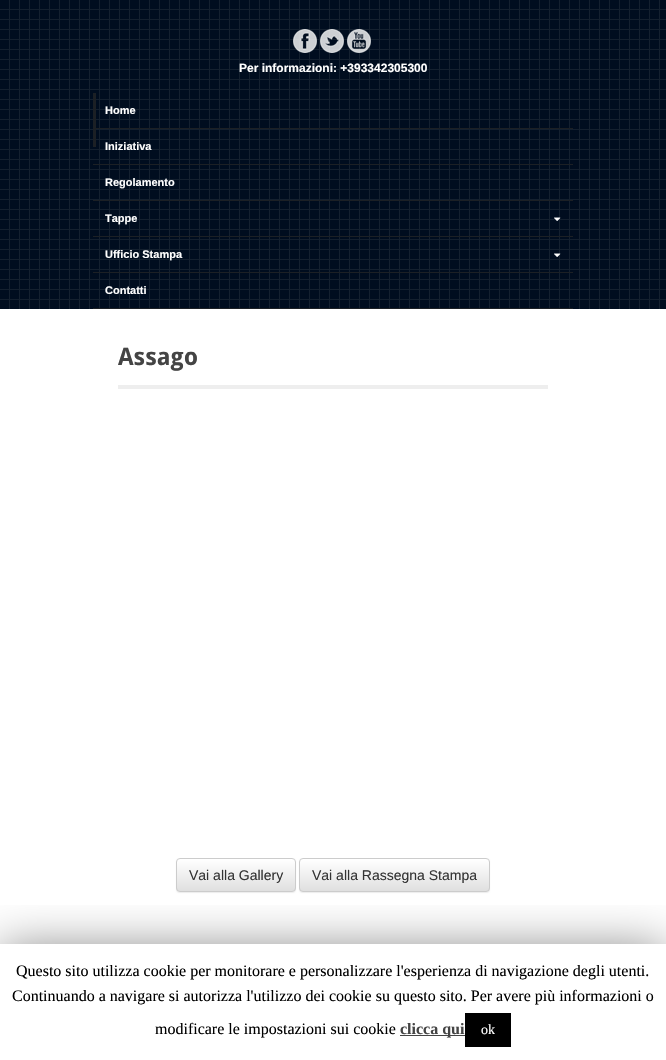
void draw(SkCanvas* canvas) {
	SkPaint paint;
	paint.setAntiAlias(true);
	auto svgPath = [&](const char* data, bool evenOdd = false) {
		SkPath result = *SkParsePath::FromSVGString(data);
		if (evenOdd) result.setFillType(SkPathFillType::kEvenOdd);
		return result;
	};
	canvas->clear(0xff000d1f);
	canvas->drawImageRect(SkImages::DeferredFromEncodedData(SkData::MakeFromFileName("img1.png")), SkRect::MakeXYWH(0, 0, 666, 309), SkSamplingOptions());
	canvas->drawImageRect(SkImages::DeferredFromEncodedData(SkData::MakeFromFileName("img2.png")), SkRect::MakeXYWH(293, 29, 24, 24), SkSamplingOptions());
	canvas->drawImageRect(SkImages::DeferredFromEncodedData(SkData::MakeFromFileName("img3.png")), SkRect::MakeXYWH(320, 29, 24, 24), SkSamplingOptions());
	canvas->drawImageRect(SkImages::DeferredFromEncodedData(SkData::MakeFromFileName("img4.png")), SkRect::MakeXYWH(347, 29, 24, 24), SkSamplingOptions());
	SkFont f1(fontMgr->matchFamilyStyle("Liberation Sans", SkFontStyle::Bold()), 12);
	f1.setSubpixel(true);
	paint.setColor(0xffffffff);
	canvas->drawString("Per informazioni: +393342305300", 239, 72, f1, paint);
	paint.setColor(0xff1c2025);
	canvas->drawRect(SkRect::MakeXYWH(93, 93, 3, 54), paint);
	canvas->drawRect(SkRect::MakeXYWH(93, 128, 480, 1), paint);
	SkFont f2(fontMgr->matchFamilyStyle("Liberation Sans", SkFontStyle::Bold()), 11);
	f2.setSubpixel(true);
	paint.setColor(0xffffffff);
	canvas->drawString("Home", 105, 114, f2, paint);
	paint.setColor(0xff1c2025);
	canvas->drawRect(SkRect::MakeXYWH(93, 164, 480, 1), paint);
	paint.setColor(0xffffffff);
	canvas->drawString("Iniziativa", 105, 150, f2, paint);
	paint.setColor(0xff1c2025);
	canvas->drawRect(SkRect::MakeXYWH(93, 200, 480, 1), paint);
	paint.setColor(0xffffffff);
	canvas->drawString("Regolamento", 105, 186, f2, paint);
	paint.setColor(0xff1c2025);
	canvas->drawRect(SkRect::MakeXYWH(93, 236, 480, 1), paint);
	paint.setColor(0xffffffff);
	canvas->drawString("Tappe", 105, 222, f2, paint);
	canvas->drawImageRect(SkImages::DeferredFromEncodedData(SkData::MakeFromFileName("img5.png")), SkRect::MakeXYWH(554, 217, 7, 4), SkSamplingOptions());
	paint.setColor(0xff1c2025);
	canvas->drawRect(SkRect::MakeXYWH(93, 272, 480, 1), paint);
	paint.setColor(0xffffffff);
	canvas->drawString("Ufficio Stampa", 105, 258, f2, paint);
	canvas->drawImageRect(SkImages::DeferredFromEncodedData(SkData::MakeFromFileName("img6.png")), SkRect::MakeXYWH(554, 253, 7, 4), SkSamplingOptions());
	paint.setColor(0xff1c2025);
	canvas->drawRect(SkRect::MakeXYWH(93, 308, 480, 1), paint);
	paint.setColor(0xffffffff);
	canvas->drawString("Contatti", 105, 294, f2, paint);
	canvas->drawRect(SkRect::MakeXYWH(0, 309, 666, 751), paint);
	paint.setColor(0xffeeeeee);
	canvas->drawRect(SkRect::MakeXYWH(118, 385, 430, 4), paint);
	SkFont f3(fontMgr->matchFamilyStyle("Droid Sans", SkFontStyle::Bold()), 24);
	f3.setSubpixel(true);
	paint.setColor(0xff444444);
	canvas->drawString("Assago", 118, 365, f3, paint);
	paint.setColor(0x12000000);
	paint.setMaskFilter(SkMaskFilter::MakeBlur(kNormal_SkBlurStyle, 0.5));
	canvas->drawRoundRect(SkRect::MakeXYWH(176, 859, 120, 34), 4, 4, paint);
	paint.setMaskFilter(nullptr);
	canvas->save();
	canvas->clipPath(svgPath("M180 858H292C294 858 296 860 296 862V888C296 890 294 892 292 892H180C178 892 176 890 176 888V862C176 860 178 858 180 858Z"), true);
	{
		const SkColor colors[] = {0xffffffff, 0xffe0e0e0};
		const float stops[] = {0, 1};
		const SkPoint ends[] = {{236, 859}, {236, 891}};
		paint.setShader(SkGradientShader::MakeLinear(ends, colors, stops, 2, SkTileMode::kClamp));
		paint.setAlpha(255);
	}
	canvas->drawRect(SkRect::MakeXYWH(176, 859, 120, 32), paint);
	canvas->restore();
	paint.setStroke(true);
	paint.setStrokeWidth(1);
	paint.setShader(nullptr);
	paint.setColor(0xffcccccc);
	canvas->drawRoundRect(SkRect::MakeXYWH(176.5, 858.5, 119, 33), 3.5, 3.5, paint);
	SkFont f4(fontMgr->matchFamilyStyle("Liberation Sans", SkFontStyle::Normal()), 14);
	f4.setSubpixel(true);
	paint.setStroke(false);
	paint.setColor(0xff333333);
	canvas->drawString("Vai alla Gallery", 189, 880, f4, paint);
	paint.setColor(0x12000000);
	paint.setMaskFilter(SkMaskFilter::MakeBlur(kNormal_SkBlurStyle, 0.5));
	canvas->drawRoundRect(SkRect::MakeXYWH(299, 859, 191, 34), 4, 4, paint);
	paint.setMaskFilter(nullptr);
	canvas->save();
	canvas->clipPath(svgPath("M303 858H486C488 858 490 860 490 862V888C490 890 488 892 486 892H303C301 892 299 890 299 888V862C299 860 301 858 303 858Z"), true);
	{
		const SkColor colors[] = {0xffffffff, 0xffe0e0e0};
		const float stops[] = {0, 1};
		const SkPoint ends[] = {{395, 859}, {395, 891}};
		paint.setShader(SkGradientShader::MakeLinear(ends, colors, stops, 2, SkTileMode::kClamp));
		paint.setAlpha(255);
	}
	canvas->drawRect(SkRect::MakeXYWH(299, 859, 191, 32), paint);
	canvas->restore();
	paint.setStroke(true);
	paint.setShader(nullptr);
	paint.setColor(0xffcccccc);
	canvas->drawRoundRect(SkRect::MakeXYWH(299.5, 858.5, 190, 33), 3.5, 3.5, paint);
	paint.setStroke(false);
	paint.setColor(0xff333333);
	canvas->drawString("Vai alla Rassegna Stampa", 312, 880, f4, paint);
	canvas->save();
	canvas->clipRect(SkRect::MakeXYWH(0, 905, 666, 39));
	paint.setColor(0x80000000);
	paint.setMaskFilter(SkMaskFilter::MakeBlur(kNormal_SkBlurStyle, 25));
	canvas->drawRect(SkRect::MakeXYWH(0, 949, 666, 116), paint);
	paint.setMaskFilter(nullptr);
	canvas->restore();
	SkFont f5(fontMgr->matchFamilyStyle("Liberation Serif", SkFontStyle::Normal()), 16);
	f5.setSubpixel(true);
	paint.setColor(0xff000000);
	canvas->drawString("Questo sito utilizza cookie per monitorare e personalizzare l'esperienza di navigazione degli utenti.", 16, 976, f5, paint);
	canvas->drawString("Continuando a navigare si autorizza l'utilizzo dei cookie su questo sito. Per avere più informazioni o", 12, 1001, f5, paint);
	canvas->drawString("modificare le impostazioni sui cookie", 155, 1034, f5, paint);
	paint.setColor(0xff444444);
	canvas->drawRect(SkRect::MakeXYWH(400, 1035, 65, 1), paint);
	SkFont f6(fontMgr->matchFamilyStyle("Liberation Serif", SkFontStyle::Bold()), 16);
	f6.setSubpixel(true);
	canvas->drawString("clicca qui", 400, 1034, f6, paint);
	paint.setColor(0xff000000);
	canvas->drawRect(SkRect::MakeXYWH(465, 1013, 46, 34), paint);
	SkFont f7(fontMgr->matchFamilyStyle("Liberation Serif", SkFontStyle::Normal()), 14);
	f7.setSubpixel(true);
	paint.setColor(0xffffffff);
	canvas->drawString("ok", 481, 1034, f7, paint);
}
